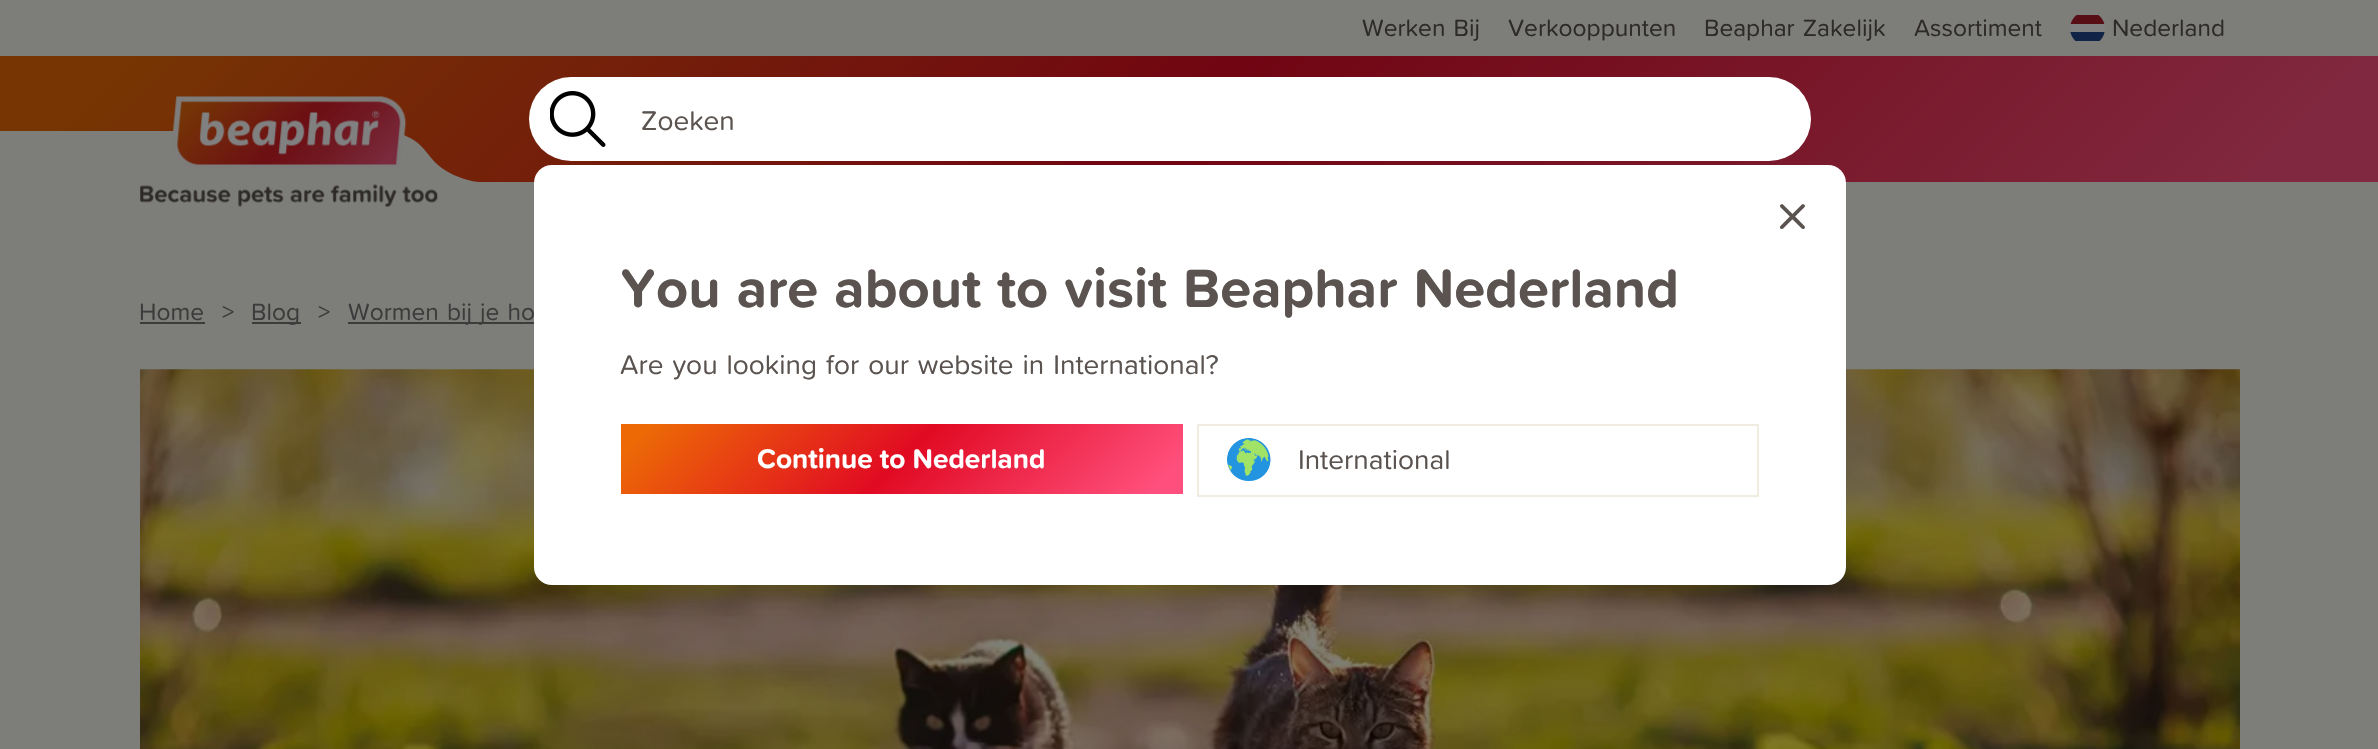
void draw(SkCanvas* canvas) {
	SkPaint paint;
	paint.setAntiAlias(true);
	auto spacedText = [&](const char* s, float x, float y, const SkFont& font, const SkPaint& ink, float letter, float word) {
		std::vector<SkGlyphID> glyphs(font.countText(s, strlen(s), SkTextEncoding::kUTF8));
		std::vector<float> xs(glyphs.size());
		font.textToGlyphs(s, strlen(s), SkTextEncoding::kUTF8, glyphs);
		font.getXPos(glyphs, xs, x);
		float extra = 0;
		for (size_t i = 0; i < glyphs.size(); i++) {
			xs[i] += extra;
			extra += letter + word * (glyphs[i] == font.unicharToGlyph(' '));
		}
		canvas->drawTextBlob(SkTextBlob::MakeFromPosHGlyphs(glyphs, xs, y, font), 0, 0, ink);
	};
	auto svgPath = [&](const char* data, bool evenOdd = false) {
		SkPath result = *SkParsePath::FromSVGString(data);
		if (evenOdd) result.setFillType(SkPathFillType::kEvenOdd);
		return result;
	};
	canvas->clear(0xff7d7d7a);
	SkFont f1(fontMgr->matchFamilyStyle("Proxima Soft", SkFontStyle::Normal()), 24.5);
	f1.setSubpixel(true);
	paint.setColor(0xff3c3c3c);
	canvas->drawString("Home", 139, 320, f1, paint);
	canvas->drawRect(SkRect::MakeXYWH(140, 322, 65, 2), paint);
	canvas->drawString(">", 222, 320, f1, paint);
	canvas->drawRect(SkRect::MakeXYWH(252, 322, 49, 2), paint);
	canvas->drawString("Blog", 251, 320, f1, paint);
	canvas->drawString(">", 318, 320, f1, paint);
	canvas->drawRect(SkRect::MakeXYWH(348, 322, 186, 2), paint);
	spacedText("Wormen bij je ho", 348, 320, f1, paint, 0, 1.75);
	canvas->drawImageRect(SkImages::DeferredFromEncodedData(SkData::MakeFromFileName("img1.png")), SkRect::MakeXYWH(140, 369, 2100, 380), SkSamplingOptions());
	paint.setColor(0xff2d2a28);
	spacedText("Werken Bij", 1362, 36, f1, paint, 0, 1.75);
	canvas->drawString("Verkooppunten", 1508, 36, f1, paint);
	spacedText("Beaphar Zakelijk", 1704, 36, f1, paint, 0, 1.75);
	canvas->drawString("Assortiment", 1914, 36, f1, paint);
	canvas->save();
	canvas->clipPath(svgPath("M2087.5 11C2097 11 2105 19 2105 28.5C2105 38 2097 46 2087.5 46C2078 46 2070 38 2070 28.5C2070 19 2078 11 2087.5 11Z"), true);
	paint.setColor(0xff808080);
	canvas->drawRect(SkRect::MakeXYWH(2070, 15, 35, 26), paint);
	paint.setColor(0xff112346);
	canvas->drawRect(SkRect::MakeXYWH(2070, 32, 35, 9), paint);
	paint.setColor(0xff570e14);
	canvas->drawRect(SkRect::MakeXYWH(2070, 15, 35, 9), paint);
	canvas->restore();
	paint.setColor(0xff2d2a28);
	canvas->drawString("Nederland", 2112, 36, f1, paint);
	{
		const SkColor colors[] = {0xff763503, 0xff710512, 0xff80283f};
		const float stops[] = {0.05, 0.5, 0.95};
		const SkPoint ends[] = {{563, -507}, {1815, 745}};
		paint.setShader(SkGradientShader::MakeLinear(ends, colors, stops, 3, SkTileMode::kClamp));
		paint.setAlpha(255);
	}
	canvas->drawRect(SkRect::MakeXYWH(0, 56, 2378, 126), paint);
	paint.setShader(nullptr);
	paint.setColor(0xffffffff);
	canvas->drawRoundRect(SkRect::MakeXYWH(534, 165, 1312, 420), 18, 18, paint);
	SkFont f2(fontMgr->matchFamilyStyle("Proxima Soft", SkFontStyle::Normal()), 70);
	f2.setSubpixel(true);
	paint.setColor(0xff5a534f);
	canvas->drawString("×", 1775, 240, f2, paint);
	SkFont f3(fontMgr->matchFamilyStyle("Proxima Soft", SkFontStyle::Bold()), 56);
	f3.setSubpixel(true);
	spacedText("You are about to visit Beaphar Nederland", 620, 307, f3, paint, 0, 1.75);
	SkFont f4(fontMgr->matchFamilyStyle("Proxima Soft", SkFontStyle::Normal()), 28);
	f4.setSubpixel(true);
	spacedText("Are you looking for our website in International?", 620, 374, f4, paint, 0, 1.75);
	{
		const SkColor colors[] = {0xffec6906, 0xffe10a23, 0xffff507d};
		const float stops[] = {0.05, 0.5, 0.95};
		const SkPoint ends[] = {{744, 301}, {1060, 617}};
		paint.setShader(SkGradientShader::MakeLinear(ends, colors, stops, 3, SkTileMode::kClamp));
		paint.setAlpha(255);
	}
	canvas->drawRect(SkRect::MakeXYWH(621, 424, 562, 70), paint);
	SkFont f5(fontMgr->matchFamilyStyle("Proxima Soft", SkFontStyle::Bold()), 28);
	f5.setSubpixel(true);
	paint.setShader(nullptr);
	paint.setColor(0xffffffff);
	canvas->drawString("Continue to Nederland", 757, 468, f5, paint);
	paint.setStroke(true);
	paint.setStrokeWidth(2);
	paint.setColor(0xfff0ece0);
	canvas->drawRect(SkRect::MakeXYWH(1198, 425, 560, 71), paint);
	canvas->drawImageRect(SkImages::DeferredFromEncodedData(SkData::MakeFromFileName("img2.png")), SkRect::MakeXYWH(1227, 438, 44, 43), SkSamplingOptions());
	paint.setStroke(false);
	paint.setColor(0xff5a534f);
	canvas->drawString("International", 1298, 469, f4, paint);
	paint.setColor(0xff7d7d7a);
	canvas->drawRect(SkRect::MakeXYWH(0, 131, 383, 51), paint);
	canvas->save();
	canvas->clipRect(SkRect::MakeXYWH(383, 131, 119, 53));
	canvas->drawPath(svgPath("M342 184V131H377C404 131 418 140 428 154C444 176 470 184 505 184Z"), paint);
	canvas->restore();
	canvas->drawImageRect(SkImages::DeferredFromEncodedData(SkData::MakeFromFileName("img3.png")), SkRect::MakeXYWH(140, 96, 298, 111), SkSamplingOptions());
	paint.setColor(0xffffffff);
	canvas->drawRoundRect(SkRect::MakeXYWH(529, 77, 1282, 84), 42, 42, paint);
	canvas->drawImageRect(SkImages::DeferredFromEncodedData(SkData::MakeFromFileName("img4.png")), SkRect::MakeXYWH(550, 91, 56, 56), SkSamplingOptions());
	paint.setColor(0xff5a534f);
	canvas->drawString("Zoeken", 641, 130, f4, paint);
}
